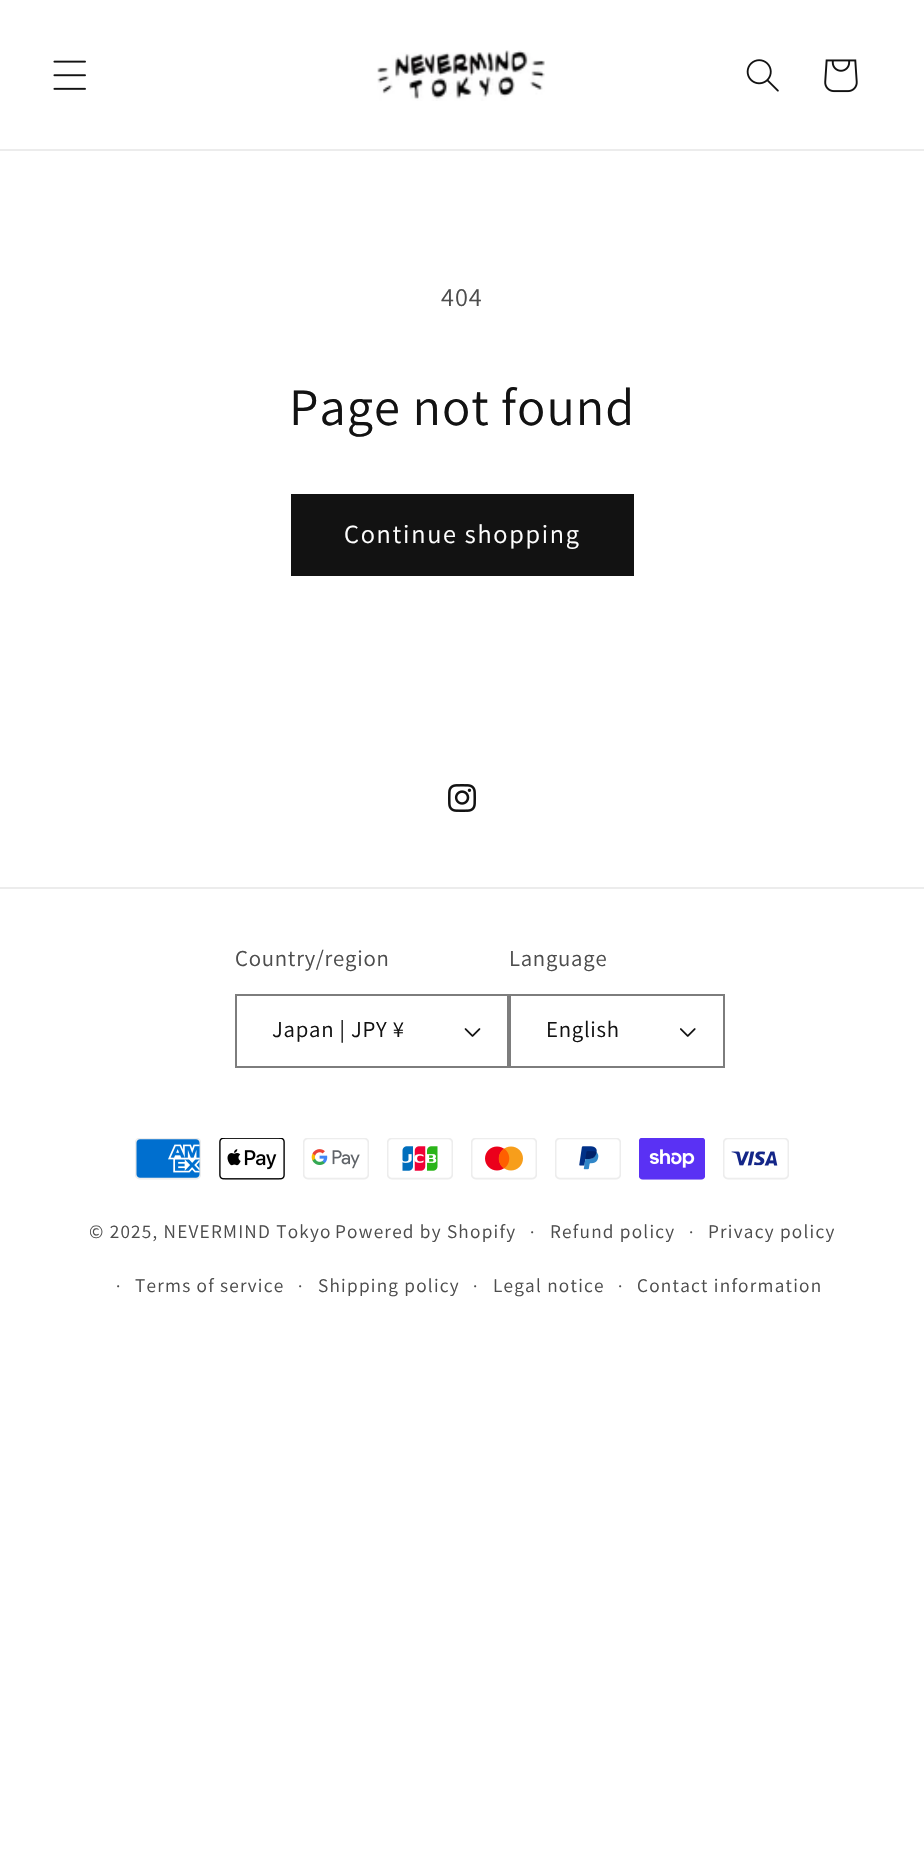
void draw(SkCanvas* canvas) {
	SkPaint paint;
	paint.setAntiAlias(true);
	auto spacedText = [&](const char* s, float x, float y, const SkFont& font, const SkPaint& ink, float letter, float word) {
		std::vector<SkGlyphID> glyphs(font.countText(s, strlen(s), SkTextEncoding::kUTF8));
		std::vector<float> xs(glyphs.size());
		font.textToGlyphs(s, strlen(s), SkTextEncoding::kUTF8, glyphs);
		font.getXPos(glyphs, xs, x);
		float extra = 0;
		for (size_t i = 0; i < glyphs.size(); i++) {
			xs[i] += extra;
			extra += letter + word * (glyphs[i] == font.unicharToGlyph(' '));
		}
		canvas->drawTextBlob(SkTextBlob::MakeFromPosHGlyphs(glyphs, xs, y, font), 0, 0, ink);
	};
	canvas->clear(0xffffffff);
	paint.setColor(0xffececec);
	canvas->drawRect(SkRect::MakeXYWH(0, 149, 924, 2), paint);
	canvas->drawImageRect(SkImages::DeferredFromEncodedData(SkData::MakeFromFileName("img1.png")), SkRect::MakeXYWH(53, 60, 33, 30), SkSamplingOptions());
	canvas->drawImageRect(SkImages::DeferredFromEncodedData(SkData::MakeFromFileName("img2.png")), SkRect::MakeXYWH(377, 50, 168, 51), SkSamplingOptions());
	canvas->drawImageRect(SkImages::DeferredFromEncodedData(SkData::MakeFromFileName("img3.png")), SkRect::MakeXYWH(746, 59, 33, 33), SkSamplingOptions());
	canvas->drawImageRect(SkImages::DeferredFromEncodedData(SkData::MakeFromFileName("img4.png")), SkRect::MakeXYWH(824, 59, 34, 34), SkSamplingOptions());
	SkFont f1(fontMgr->matchFamilyStyle("Assistant", SkFontStyle::Normal()), 26.25);
	f1.setSubpixel(true);
	paint.setColor(0xff4d4d4d);
	spacedText("404", 441, 306, f1, paint, 1, 0);
	SkFont f2(fontMgr->matchFamilyStyle("Assistant", SkFontStyle::Normal()), 52.5);
	f2.setSubpixel(true);
	paint.setColor(0xff121212);
	spacedText("Page not found", 289, 425, f2, paint, 1, 0);
	canvas->drawRect(SkRect::MakeXYWH(291, 494, 343, 82), paint);
	paint.setColor(0xffffffff);
	spacedText("Continue shopping", 344, 543, f1, paint, 1.75, 0);
	canvas->drawImageRect(SkImages::DeferredFromEncodedData(SkData::MakeFromFileName("img5.png")), SkRect::MakeXYWH(448, 784, 28, 28), SkSamplingOptions());
	paint.setColor(0xffececec);
	canvas->drawRect(SkRect::MakeXYWH(0, 887, 924, 2), paint);
	SkFont f3(fontMgr->matchFamilyStyle("Assistant", SkFontStyle::Normal()), 22.75);
	f3.setSubpixel(true);
	paint.setColor(0xff4d4d4d);
	spacedText("Country/region", 235, 966, f3, paint, 0.75, 0);
	canvas->drawImageRect(SkImages::DeferredFromEncodedData(SkData::MakeFromFileName("img6.png")), SkRect::MakeXYWH(464, 1028, 17, 9), SkSamplingOptions());
	paint.setStroke(true);
	paint.setStrokeWidth(2);
	paint.setColor(0xff7d7d7d);
	canvas->drawRect(SkRect::MakeXYWH(236, 995, 272, 72), paint);
	paint.setStroke(false);
	paint.setColor(0xff121212);
	spacedText("Japan | JPY ¥", 272, 1037, f3, paint, 0.75, 0);
	paint.setColor(0xff4d4d4d);
	spacedText("Language", 509, 966, f3, paint, 0.75, 0);
	canvas->drawImageRect(SkImages::DeferredFromEncodedData(SkData::MakeFromFileName("img7.png")), SkRect::MakeXYWH(680, 1028, 16, 9), SkSamplingOptions());
	paint.setStroke(true);
	paint.setColor(0xff7d7d7d);
	canvas->drawRect(SkRect::MakeXYWH(510, 995, 214, 72), paint);
	paint.setStroke(false);
	paint.setColor(0xff121212);
	spacedText("English", 546, 1037, f3, paint, 0.75, 0);
	canvas->drawImageRect(SkImages::DeferredFromEncodedData(SkData::MakeFromFileName("img8.png")), SkRect::MakeXYWH(135, 1138, 66, 42), SkSamplingOptions());
	canvas->drawImageRect(SkImages::DeferredFromEncodedData(SkData::MakeFromFileName("img9.png")), SkRect::MakeXYWH(219, 1138, 66, 42), SkSamplingOptions());
	canvas->drawImageRect(SkImages::DeferredFromEncodedData(SkData::MakeFromFileName("img10.png")), SkRect::MakeXYWH(303, 1138, 66, 42), SkSamplingOptions());
	canvas->drawImageRect(SkImages::DeferredFromEncodedData(SkData::MakeFromFileName("img11.png")), SkRect::MakeXYWH(387, 1138, 66, 42), SkSamplingOptions());
	canvas->drawImageRect(SkImages::DeferredFromEncodedData(SkData::MakeFromFileName("img12.png")), SkRect::MakeXYWH(471, 1138, 66, 42), SkSamplingOptions());
	canvas->drawImageRect(SkImages::DeferredFromEncodedData(SkData::MakeFromFileName("img13.png")), SkRect::MakeXYWH(555, 1138, 66, 42), SkSamplingOptions());
	canvas->drawImageRect(SkImages::DeferredFromEncodedData(SkData::MakeFromFileName("img14.png")), SkRect::MakeXYWH(639, 1138, 66, 42), SkSamplingOptions());
	canvas->drawImageRect(SkImages::DeferredFromEncodedData(SkData::MakeFromFileName("img15.png")), SkRect::MakeXYWH(723, 1138, 66, 42), SkSamplingOptions());
	SkFont f4(fontMgr->matchFamilyStyle("Assistant", SkFontStyle::Normal()), 19.25);
	f4.setSubpixel(true);
	paint.setColor(0xff4d4d4d);
	spacedText("© 2025, NEVERMIND Tokyo", 89, 1238, f4, paint, 1.25, 0);
	SkFont f5(fontMgr->matchFamilyStyle("Assistant", SkFontStyle::Normal()), 18);
	f5.setSubpixel(true);
	spacedText("·", 530, 1238, f5, paint, 1.25, 0);
	spacedText("Refund policy", 550, 1238, f4, paint, 1.25, 0);
	spacedText("·", 689, 1238, f5, paint, 1.25, 0);
	spacedText("Privacy policy", 708, 1238, f4, paint, 1.25, 0);
	spacedText("·", 116, 1292, f5, paint, 1.25, 0);
	spacedText("Terms of service", 135, 1292, f4, paint, 1.25, 0);
	spacedText("·", 298, 1292, f5, paint, 1.25, 0);
	spacedText("Shipping policy", 318, 1292, f4, paint, 1.25, 0);
	spacedText("·", 473, 1292, f5, paint, 1.25, 0);
	spacedText("Legal notice", 493, 1292, f4, paint, 1.25, 0);
	spacedText("·", 618, 1292, f5, paint, 1.25, 0);
	spacedText("Contact information", 637, 1292, f4, paint, 1.25, 0);
	spacedText("Powered by Shopify", 335, 1238, f4, paint, 1.25, 0);
}
